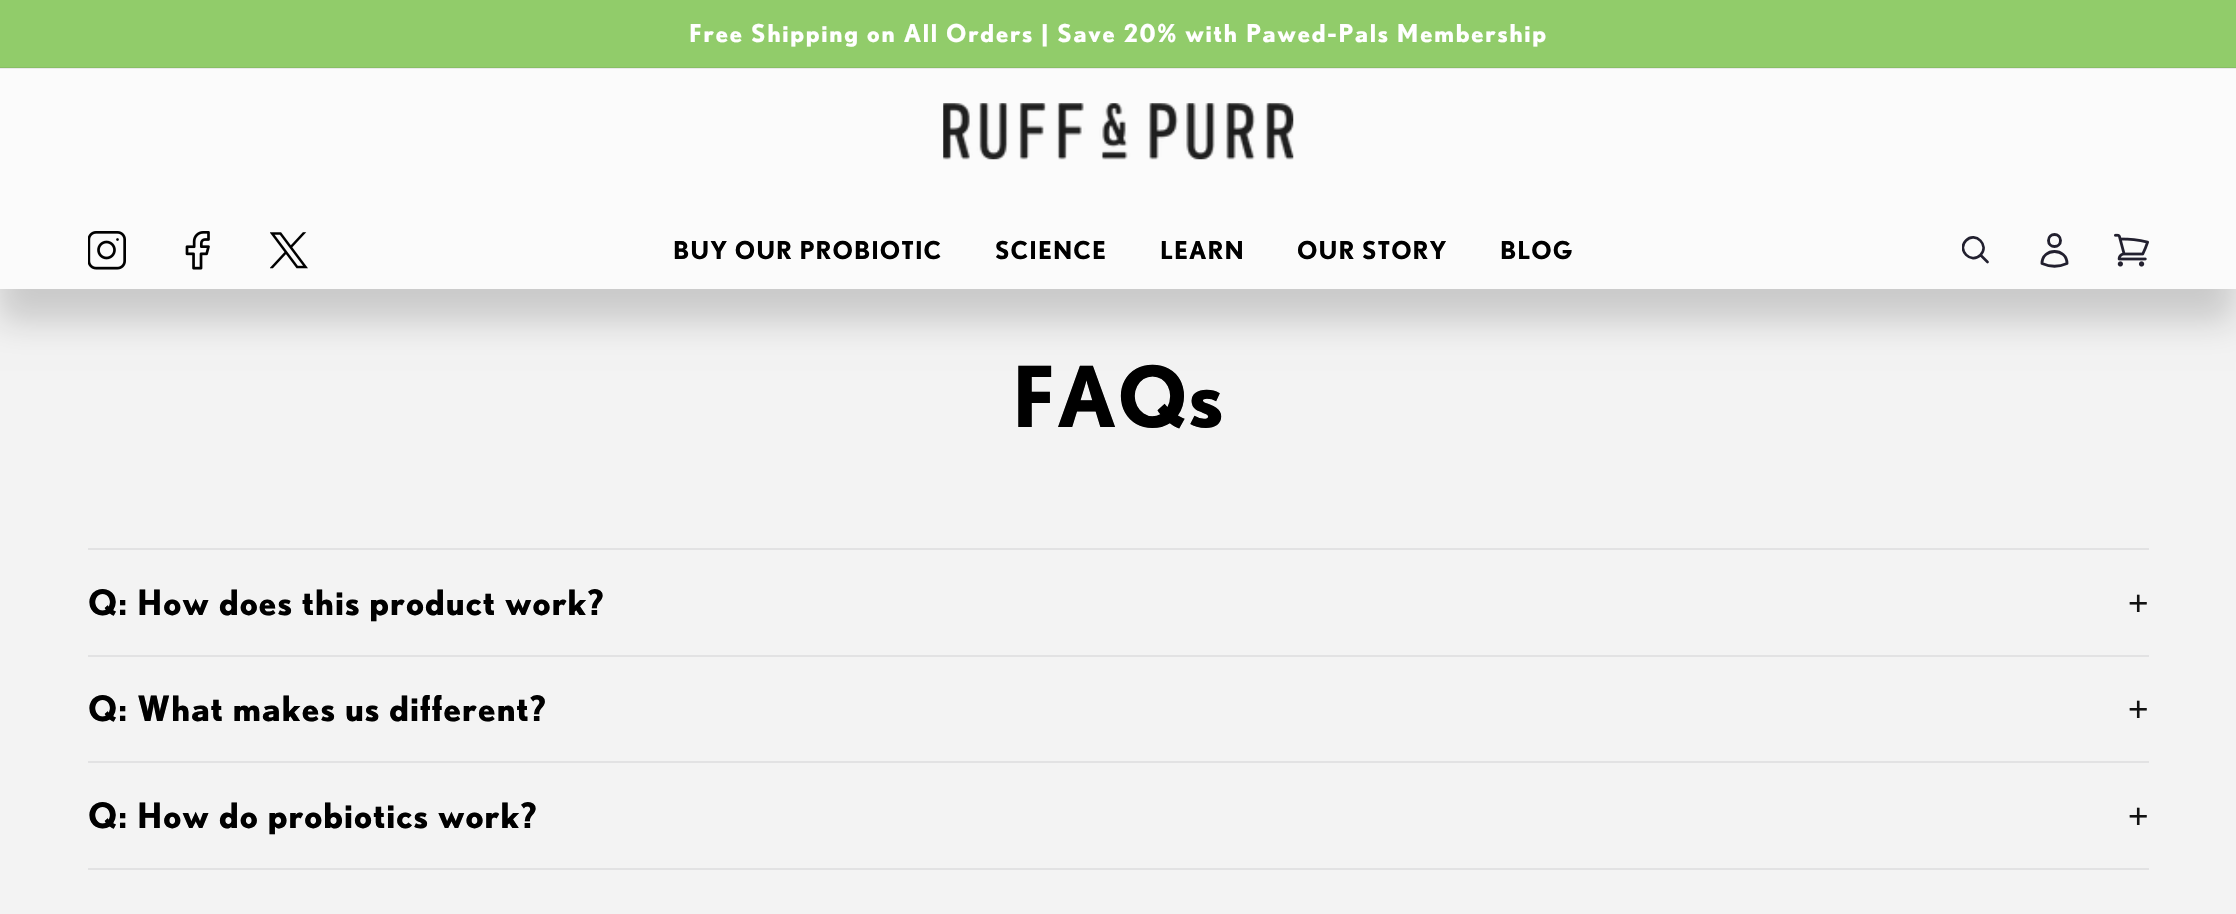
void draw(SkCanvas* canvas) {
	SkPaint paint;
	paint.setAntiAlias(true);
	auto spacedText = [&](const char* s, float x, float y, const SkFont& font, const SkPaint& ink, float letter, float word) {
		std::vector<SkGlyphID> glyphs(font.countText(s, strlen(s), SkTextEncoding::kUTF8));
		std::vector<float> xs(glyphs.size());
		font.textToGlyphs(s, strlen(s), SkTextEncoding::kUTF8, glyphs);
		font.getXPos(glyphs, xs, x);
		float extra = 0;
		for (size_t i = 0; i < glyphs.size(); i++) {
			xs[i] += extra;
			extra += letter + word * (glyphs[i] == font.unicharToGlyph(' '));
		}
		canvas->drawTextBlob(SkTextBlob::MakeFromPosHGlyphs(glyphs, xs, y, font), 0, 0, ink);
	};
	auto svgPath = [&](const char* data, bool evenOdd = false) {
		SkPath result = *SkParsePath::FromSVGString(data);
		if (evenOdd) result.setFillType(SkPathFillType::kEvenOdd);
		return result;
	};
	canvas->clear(0xfff3f3f3);
	paint.setColor(0x2b000000);
	paint.setMaskFilter(SkMaskFilter::MakeBlur(kNormal_SkBlurStyle, 16.5));
	canvas->drawRect(SkRect::MakeXYWH(-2, 102, 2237, 220), paint);
	paint.setMaskFilter(nullptr);
	paint.setColor(0xff91cc6a);
	canvas->drawRect(SkRect::MakeXYWH(0, 0, 2236, 67), paint);
	paint.setColor(0xff88be65);
	canvas->drawRect(SkRect::MakeXYWH(0, 67, 2236, 1), paint);
	SkFont f1(fontMgr->matchFamilyStyle("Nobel", SkFontStyle::Bold()), 24.5);
	f1.setSubpixel(true);
	paint.setColor(0xffffffff);
	spacedText("Free Shipping on All Orders | Save 20% with Pawed-Pals Membership", 689, 42, f1, paint, 1.75, 0);
	paint.setColor(0xfffbfbfb);
	canvas->drawRect(SkRect::MakeXYWH(0, 69, 2236, 220), paint);
	paint.setColor(0xffeae9eb);
	canvas->drawRect(SkRect::MakeXYWH(0, 68, 2236, 1), paint);
	canvas->drawImageRect(SkImages::DeferredFromEncodedData(SkData::MakeFromFileName("img1.png")), SkRect::MakeXYWH(943, 103, 351, 57), SkSamplingOptions());
	canvas->drawImageRect(SkImages::DeferredFromEncodedData(SkData::MakeFromFileName("img2.png")), SkRect::MakeXYWH(88, 231, 38, 39), SkSamplingOptions());
	canvas->drawImageRect(SkImages::DeferredFromEncodedData(SkData::MakeFromFileName("img3.png")), SkRect::MakeXYWH(185, 231, 25, 39), SkSamplingOptions());
	canvas->drawImageRect(SkImages::DeferredFromEncodedData(SkData::MakeFromFileName("img4.png")), SkRect::MakeXYWH(270, 232, 38, 37), SkSamplingOptions());
	paint.setColor(0xff000000);
	spacedText("BUY OUR PROBIOTIC", 673, 259, f1, paint, 1.05, 0);
	spacedText("SCIENCE", 995, 259, f1, paint, 1.05, 0);
	spacedText("LEARN", 1160, 259, f1, paint, 1.05, 0);
	spacedText("OUR STORY", 1297, 259, f1, paint, 1.05, 0);
	spacedText("BLOG", 1500, 259, f1, paint, 1.05, 0);
	canvas->save();
	canvas->clipRect(SkRect::MakeXYWH(1962, 236, 27, 28));
	paint.setStroke(true);
	paint.setStrokeWidth(2.6);
	paint.setStrokeCap(SkPaint::kRound_Cap);
	paint.setStrokeJoin(SkPaint::kRound_Join);
	paint.setColor(0xff22202f);
	canvas->drawPath(svgPath("M1987.5 262L1980.5 255M1980.5 255C1990 245.5 1975.5 231 1966 240.5C1956.5 250 1971 264.5 1980.5 255Z"), paint);
	canvas->restore();
	paint.setStrokeWidth(2.9);
	canvas->drawPath(svgPath("M2060.5 240.5C2060.5 248.5 2048.5 248.5 2048.5 240.5C2048.5 232.5 2060.5 232.5 2060.5 240.5ZM2042 263.5C2042 247.5 2067 247.5 2067 263.5C2059 267 2050 267 2042 263.5Z"), paint);
	canvas->drawImageRect(SkImages::DeferredFromEncodedData(SkData::MakeFromFileName("img5.png")), SkRect::MakeXYWH(2114, 233, 35, 34), SkSamplingOptions());
	SkFont f2(fontMgr->matchFamilyStyle("Nobel", SkFontStyle::Bold()), 84);
	f2.setSubpixel(true);
	paint.setStroke(false);
	paint.setColor(0xff000000);
	spacedText("FAQs", 1012, 427, f2, paint, 1.05, 0);
	paint.setColor(0xffe2e2e3);
	canvas->drawRect(SkRect::MakeXYWH(88, 548, 2061, 2), paint);
	canvas->drawRect(SkRect::MakeXYWH(88, 655, 2061, 2), paint);
	SkFont f3(fontMgr->matchFamilyStyle("Nobel", SkFontStyle::Bold()), 35);
	f3.setSubpixel(true);
	paint.setColor(0xff000000);
	spacedText("Q: How does this product work?", 88, 615, f3, paint, 1.05, 0);
	SkFont f4(fontMgr->matchFamilyStyle("Liberation Sans", SkFontStyle::Normal()), 35);
	f4.setSubpixel(true);
	paint.setColor(0xff121212);
	spacedText("+", 2128, 615, f4, paint, 1.05, 0);
	paint.setColor(0xffe2e2e3);
	canvas->drawRect(SkRect::MakeXYWH(88, 761, 2061, 2), paint);
	paint.setColor(0xff000000);
	spacedText("Q: What makes us different?", 88, 721, f3, paint, 1.05, 0);
	paint.setColor(0xff121212);
	spacedText("+", 2128, 721, f4, paint, 1.05, 0);
	paint.setColor(0xffe2e2e3);
	canvas->drawRect(SkRect::MakeXYWH(88, 868, 2061, 2), paint);
	paint.setColor(0xff000000);
	spacedText("Q: How do probiotics work?", 88, 828, f3, paint, 1.05, 0);
	paint.setColor(0xff121212);
	spacedText("+", 2128, 828, f4, paint, 1.05, 0);
}
